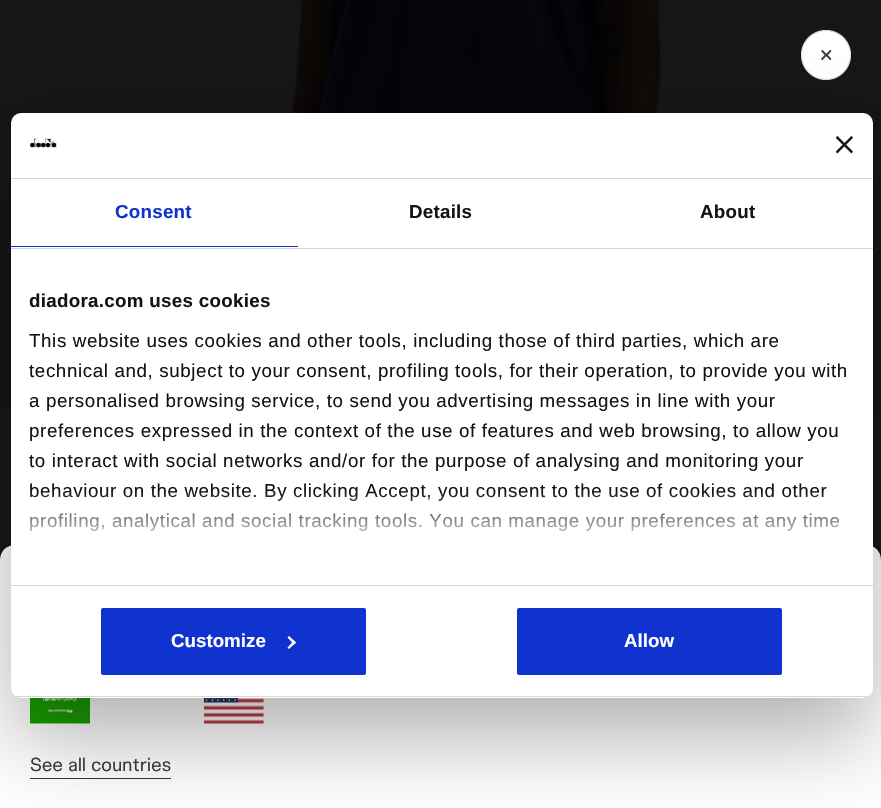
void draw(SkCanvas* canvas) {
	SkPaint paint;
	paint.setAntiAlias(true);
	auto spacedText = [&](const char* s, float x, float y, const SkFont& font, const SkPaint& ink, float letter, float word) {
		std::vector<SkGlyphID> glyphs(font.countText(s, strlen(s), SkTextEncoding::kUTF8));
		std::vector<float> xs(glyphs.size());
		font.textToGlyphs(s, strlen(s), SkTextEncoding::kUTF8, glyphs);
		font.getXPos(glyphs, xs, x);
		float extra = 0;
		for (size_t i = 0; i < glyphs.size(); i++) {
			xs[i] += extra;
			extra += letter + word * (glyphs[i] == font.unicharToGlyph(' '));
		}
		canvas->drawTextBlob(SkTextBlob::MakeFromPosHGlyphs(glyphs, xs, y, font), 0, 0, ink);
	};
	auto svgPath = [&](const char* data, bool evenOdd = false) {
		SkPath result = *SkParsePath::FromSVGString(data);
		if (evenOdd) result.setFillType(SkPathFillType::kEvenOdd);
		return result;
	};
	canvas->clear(0xff171717);
	canvas->drawImageRect(SkImages::DeferredFromEncodedData(SkData::MakeFromFileName("img1.png")), SkRect::MakeXYWH(0, 0, 881, 411), SkSamplingOptions());
	canvas->drawImageRect(SkImages::DeferredFromEncodedData(SkData::MakeFromFileName("img4.png")), SkRect::MakeXYWH(801, 30, 50, 50), SkSamplingOptions());
	paint.setColor(0xffffffff);
	canvas->drawPath(svgPath("M15 545H866C874.5 545 881 551.5 881 560V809H0V560C0 551.5 6.5 545 15 545Z"), paint);
	canvas->drawImageRect(SkImages::DeferredFromEncodedData(SkData::MakeFromFileName("img5.png")), SkRect::MakeXYWH(30, 698, 60, 26), SkSamplingOptions());
	canvas->drawImageRect(SkImages::DeferredFromEncodedData(SkData::MakeFromFileName("img6.png")), SkRect::MakeXYWH(204, 698, 60, 26), SkSamplingOptions());
	paint.setColor(0xff373935);
	canvas->drawRect(SkRect::MakeXYWH(30, 778, 141, 1), paint);
	paint.setColor(0x4d000000);
	paint.setMaskFilter(SkMaskFilter::MakeBlur(kNormal_SkBlurStyle, 42.5));
	canvas->drawRoundRect(SkRect::MakeXYWH(11, 153, 862, 585), 10, 10, paint);
	paint.setMaskFilter(nullptr);
	paint.setColor(0xffffffff);
	canvas->drawRoundRect(SkRect::MakeXYWH(11, 113, 862, 585), 10, 10, paint);
	paint.setColor(0xffd6d6d6);
	canvas->drawRect(SkRect::MakeXYWH(11, 178, 862, 1), paint);
	canvas->drawImageRect(SkImages::DeferredFromEncodedData(SkData::MakeFromFileName("img2.png")), SkRect::MakeXYWH(30, 138, 27, 10), SkSamplingOptions());
	canvas->drawImageRect(SkImages::DeferredFromEncodedData(SkData::MakeFromFileName("img3.png")), SkRect::MakeXYWH(836, 136, 17, 18), SkSamplingOptions());
	canvas->drawRect(SkRect::MakeXYWH(11, 248, 862, 1), paint);
	paint.setColor(0xff1032cf);
	canvas->drawRect(SkRect::MakeXYWH(11, 246, 287, 1), paint);
	SkFont f1(fontMgr->matchFamilyStyle("Liberation Sans", SkFontStyle::Bold()), 18.75);
	f1.setSubpixel(true);
	spacedText("Consent", 115, 218, f1, paint, 0.25, 0);
	paint.setColor(0xff141414);
	spacedText("Details", 409, 218, f1, paint, 0.25, 0);
	spacedText("About", 700, 218, f1, paint, 0.25, 0);
	paint.setColor(0xffd6d6d6);
	canvas->drawRect(SkRect::MakeXYWH(11, 585, 862, 1), paint);
	paint.setColor(0xff141414);
	spacedText("diadora.com uses cookies", 29, 307, f1, paint, 0.3, 0);
	SkFont f2(fontMgr->matchFamilyStyle("Liberation Sans", SkFontStyle::Normal()), 18.75);
	f2.setSubpixel(true);
	spacedText("This website uses cookies and other tools, including those of third parties, which are", 29, 347, f2, paint, 0.62, 0);
	spacedText("technical and, subject to your consent, profiling tools, for their operation, to provide you with", 29, 377, f2, paint, 0.62, 0);
	spacedText("a personalised browsing service, to send you advertising messages in line with your", 29, 407, f2, paint, 0.62, 0);
	spacedText("preferences expressed in the context of the use of features and web browsing, to allow you", 29, 437, f2, paint, 0.62, 0);
	spacedText("to interact with social networks and/or for the purpose of analysing and monitoring your", 29, 467, f2, paint, 0.62, 0);
	spacedText("behaviour on the website. By clicking Accept, you consent to the use of cookies and other", 29, 497, f2, paint, 0.62, 0);
	spacedText("profiling, analytical and social tracking tools. You can manage your preferences at any time", 29, 527, f2, paint, 0.62, 0);
	{
		const SkColor colors[] = {0xffffffff, 0xccffffff, 0x00ffffff};
		const float stops[] = {0, 0.5, 1};
		const SkPoint ends[] = {{433, 585}, {433, 491}};
		paint.setShader(SkGradientShader::MakeLinear(ends, colors, stops, 3, SkTileMode::kClamp));
		paint.setAlpha(255);
	}
	canvas->drawRect(SkRect::MakeXYWH(29, 492, 811, 39), paint);
	canvas->save();
	canvas->clipPath(svgPath("M21 113H863C868.5 113 873 117.5 873 123V688C873 693.5 868.5 698 863 698H21C15.5 698 11 693.5 11 688V123C11 117.5 15.5 113 21 113Z"), true);
	paint.setShader(nullptr);
	paint.setColor(0xffd6d6d6);
	canvas->drawRect(SkRect::MakeXYWH(11, 696, 862, 1), paint);
	canvas->restore();
	paint.setColor(0xff1032cf);
	canvas->drawRoundRect(SkRect::MakeXYWH(99.5, 606.5, 268, 70), 3.5, 3.5, paint);
	paint.setStroke(true);
	paint.setStrokeWidth(3);
	paint.setColor(0xffffffff);
	canvas->drawRoundRect(SkRect::MakeXYWH(99.5, 606.5, 268, 70), 3.5, 3.5, paint);
	paint.setStroke(false);
	canvas->drawString("Customize", 171, 647, f1, paint);
	canvas->drawPath(svgPath("M289 636L296 642.5L294 644.5L287.5 637.5Z"), paint);
	canvas->drawPath(svgPath("M294 640.5L296 642.5L289 649L287.5 647.5Z"), paint);
	paint.setColor(0xff1032cf);
	canvas->drawRoundRect(SkRect::MakeXYWH(515.5, 606.5, 268, 70), 3.5, 3.5, paint);
	paint.setStroke(true);
	paint.setColor(0xffffffff);
	canvas->drawRoundRect(SkRect::MakeXYWH(515.5, 606.5, 268, 70), 3.5, 3.5, paint);
	paint.setStroke(false);
	canvas->drawString("Allow", 624, 647, f1, paint);
	SkFont f3(fontMgr->matchFamilyStyle("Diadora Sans", SkFontStyle::Normal()), 17.5);
	f3.setSubpixel(true);
	paint.setColor(0xff373935);
	spacedText("See all countries", 30, 771, f3, paint, 0.25, 0);
}
